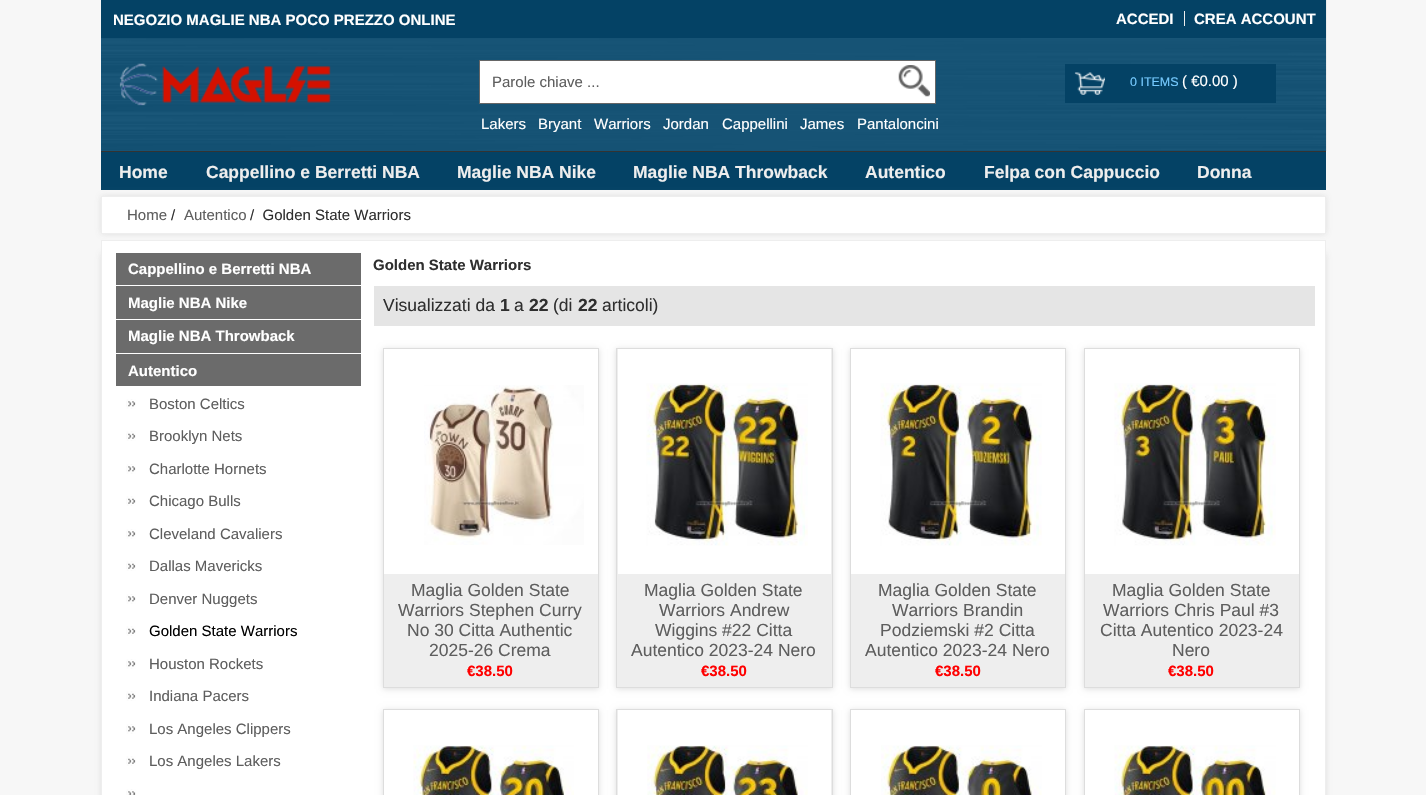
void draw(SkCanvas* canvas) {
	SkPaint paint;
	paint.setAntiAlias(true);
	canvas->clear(0xfff7f7f7);
	paint.setColor(0xff085987);
	canvas->drawRect(SkRect::MakeXYWH(101, 38, 1225, 113), paint);
	canvas->drawImageRect(SkImages::DeferredFromEncodedData(SkData::MakeFromFileName("img1.png")), SkRect::MakeXYWH(101, 0, 1226, 151), SkSamplingOptions());
	paint.setColor(0xff044265);
	canvas->drawRect(SkRect::MakeXYWH(101, 0, 1225, 38), paint);
	SkFont f1(fontMgr->matchFamilyStyle("Liberation Sans", SkFontStyle::Bold()), 15);
	f1.setSubpixel(true);
	paint.setColor(0xffffffff);
	canvas->drawString("NEGOZIO MAGLIE NBA POCO PREZZO ONLINE", 113, 25, f1, paint);
	canvas->drawString("ACCEDI", 1116, 24, f1, paint);
	paint.setColor(0xffeeeeee);
	canvas->drawRect(SkRect::MakeXYWH(1184, 11, 1, 15), paint);
	paint.setColor(0xffffffff);
	canvas->drawString("CREA ACCOUNT", 1194, 24, f1, paint);
	canvas->drawImageRect(SkImages::DeferredFromEncodedData(SkData::MakeFromFileName("img2.png")), SkRect::MakeXYWH(119, 63, 212, 43), SkSamplingOptions());
	canvas->drawRect(SkRect::MakeXYWH(479.5, 60.5, 456, 43), paint);
	paint.setStroke(true);
	paint.setStrokeWidth(1);
	paint.setColor(0xff666666);
	canvas->drawRect(SkRect::MakeXYWH(479.5, 60.5, 456, 43), paint);
	SkFont f2(fontMgr->matchFamilyStyle("Liberation Sans", SkFontStyle::Normal()), 15);
	f2.setSubpixel(true);
	paint.setStroke(false);
	paint.setColor(0xff5e5e5e);
	canvas->drawString("Parole chiave ...", 492, 87, f2, paint);
	canvas->drawImageRect(SkImages::DeferredFromEncodedData(SkData::MakeFromFileName("img3.png")), SkRect::MakeXYWH(898, 65, 32, 32), SkSamplingOptions());
	paint.setColor(0xffffffff);
	canvas->drawString("Lakers", 481, 129, f2, paint);
	canvas->drawString("Bryant", 538, 129, f2, paint);
	canvas->drawString("Warriors", 594, 129, f2, paint);
	canvas->drawString("Jordan", 663, 129, f2, paint);
	canvas->drawString("Cappellini", 722, 129, f2, paint);
	canvas->drawString("James", 800, 129, f2, paint);
	canvas->drawString("Pantaloncini", 857, 129, f2, paint);
	paint.setColor(0xff044265);
	canvas->drawRect(SkRect::MakeXYWH(1065, 64, 211, 39), paint);
	canvas->drawImageRect(SkImages::DeferredFromEncodedData(SkData::MakeFromFileName("img4.png")), SkRect::MakeXYWH(1074, 72, 31, 23), SkSamplingOptions());
	SkFont f3(fontMgr->matchFamilyStyle("Liberation Sans", SkFontStyle::Normal()), 12.5);
	f3.setSubpixel(true);
	paint.setColor(0xff75caff);
	canvas->drawString("0 ITEMS", 1130, 86, f3, paint);
	paint.setColor(0xffffffff);
	canvas->drawString("( €0.00 )", 1182, 86, f2, paint);
	paint.setColor(0xff044265);
	canvas->drawRect(SkRect::MakeXYWH(101, 152, 1225, 38), paint);
	paint.setColor(0xff333333);
	canvas->drawRect(SkRect::MakeXYWH(101, 151, 1225, 1), paint);
	SkFont f4(fontMgr->matchFamilyStyle("Liberation Sans", SkFontStyle::Bold()), 17.5);
	f4.setSubpixel(true);
	paint.setColor(0xffeeeeee);
	canvas->drawString("Home", 119, 178, f4, paint);
	canvas->drawString("Cappellino e Berretti NBA", 206, 178, f4, paint);
	canvas->drawString("Maglie NBA Nike", 457, 178, f4, paint);
	canvas->drawString("Maglie NBA Throwback", 633, 178, f4, paint);
	canvas->drawString("Autentico", 865, 178, f4, paint);
	canvas->drawString("Felpa con Cappuccio", 984, 178, f4, paint);
	canvas->drawString("Donna", 1197, 178, f4, paint);
	paint.setColor(0xdedddddd);
	paint.setMaskFilter(SkMaskFilter::MakeBlur(kNormal_SkBlurStyle, 3));
	canvas->drawRect(SkRect::MakeXYWH(101, 196, 1225, 38), paint);
	paint.setMaskFilter(nullptr);
	paint.setColor(0xffffffff);
	canvas->drawRect(SkRect::MakeXYWH(101.5, 196.5, 1224, 37), paint);
	paint.setStroke(true);
	paint.setColor(0xffeeeeee);
	canvas->drawRect(SkRect::MakeXYWH(101.5, 196.5, 1224, 37), paint);
	paint.setStroke(false);
	paint.setColor(0xff5e5e5e);
	canvas->drawString("Home", 127, 220, f2, paint);
	paint.setColor(0xff2f2f2f);
	canvas->drawString("/", 171, 220, f2, paint);
	paint.setColor(0xff5e5e5e);
	canvas->drawString("Autentico", 184, 220, f2, paint);
	paint.setColor(0xff2f2f2f);
	canvas->drawString("/  Golden State Warriors", 250, 220, f2, paint);
	paint.setColor(0xdedddddd);
	paint.setMaskFilter(SkMaskFilter::MakeBlur(kNormal_SkBlurStyle, 3));
	canvas->drawRect(SkRect::MakeXYWH(101, 253, 1225, 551), paint);
	paint.setMaskFilter(nullptr);
	paint.setColor(0xffffffff);
	canvas->drawRect(SkRect::MakeXYWH(101.5, 240.5, 1224, 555), paint);
	paint.setStroke(true);
	paint.setColor(0xffeeeeee);
	canvas->drawRect(SkRect::MakeXYWH(101.5, 240.5, 1224, 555), paint);
	paint.setStroke(false);
	paint.setColor(0xff6b6b6b);
	canvas->drawRect(SkRect::MakeXYWH(116, 253, 245, 32), paint);
	paint.setColor(0xffffffff);
	canvas->drawString("Cappellino e Berretti NBA", 128, 274, f1, paint);
	paint.setColor(0xff6b6b6b);
	canvas->drawRect(SkRect::MakeXYWH(116, 286, 245, 33), paint);
	paint.setColor(0xffffffff);
	canvas->drawString("Maglie NBA Nike", 128, 308, f1, paint);
	paint.setColor(0xff6b6b6b);
	canvas->drawRect(SkRect::MakeXYWH(116, 320, 245, 33), paint);
	paint.setColor(0xffffffff);
	canvas->drawString("Maglie NBA Throwback", 128, 341, f1, paint);
	paint.setColor(0xff6b6b6b);
	canvas->drawRect(SkRect::MakeXYWH(116, 354, 245, 32), paint);
	paint.setColor(0xffffffff);
	canvas->drawString("Autentico", 128, 376, f1, paint);
	canvas->drawImageRect(SkImages::DeferredFromEncodedData(SkData::MakeFromFileName("img5.png")), SkRect::MakeXYWH(126, 399, 10, 10), SkSamplingOptions());
	paint.setColor(0xff5e5e5e);
	canvas->drawString("Boston Celtics", 149, 409, f2, paint);
	canvas->drawImageRect(SkImages::DeferredFromEncodedData(SkData::MakeFromFileName("img6.png")), SkRect::MakeXYWH(126, 431, 10, 10), SkSamplingOptions());
	canvas->drawString("Brooklyn Nets", 149, 441, f2, paint);
	canvas->drawImageRect(SkImages::DeferredFromEncodedData(SkData::MakeFromFileName("img5.png")), SkRect::MakeXYWH(126, 464, 10, 10), SkSamplingOptions());
	canvas->drawString("Charlotte Hornets", 149, 474, f2, paint);
	canvas->drawImageRect(SkImages::DeferredFromEncodedData(SkData::MakeFromFileName("img6.png")), SkRect::MakeXYWH(126, 496, 10, 10), SkSamplingOptions());
	canvas->drawString("Chicago Bulls", 149, 506, f2, paint);
	canvas->drawImageRect(SkImages::DeferredFromEncodedData(SkData::MakeFromFileName("img5.png")), SkRect::MakeXYWH(126, 529, 10, 10), SkSamplingOptions());
	canvas->drawString("Cleveland Cavaliers", 149, 539, f2, paint);
	canvas->drawImageRect(SkImages::DeferredFromEncodedData(SkData::MakeFromFileName("img6.png")), SkRect::MakeXYWH(126, 561, 10, 10), SkSamplingOptions());
	canvas->drawString("Dallas Mavericks", 149, 571, f2, paint);
	canvas->drawImageRect(SkImages::DeferredFromEncodedData(SkData::MakeFromFileName("img5.png")), SkRect::MakeXYWH(126, 594, 10, 10), SkSamplingOptions());
	canvas->drawString("Denver Nuggets", 149, 604, f2, paint);
	canvas->drawImageRect(SkImages::DeferredFromEncodedData(SkData::MakeFromFileName("img6.png")), SkRect::MakeXYWH(126, 626, 10, 10), SkSamplingOptions());
	paint.setColor(0xff000000);
	canvas->drawString("Golden State Warriors", 149, 636, f2, paint);
	canvas->drawImageRect(SkImages::DeferredFromEncodedData(SkData::MakeFromFileName("img5.png")), SkRect::MakeXYWH(126, 659, 10, 10), SkSamplingOptions());
	paint.setColor(0xff5e5e5e);
	canvas->drawString("Houston Rockets", 149, 669, f2, paint);
	canvas->drawImageRect(SkImages::DeferredFromEncodedData(SkData::MakeFromFileName("img6.png")), SkRect::MakeXYWH(126, 691, 10, 10), SkSamplingOptions());
	canvas->drawString("Indiana Pacers", 149, 701, f2, paint);
	canvas->drawImageRect(SkImages::DeferredFromEncodedData(SkData::MakeFromFileName("img5.png")), SkRect::MakeXYWH(126, 724, 10, 10), SkSamplingOptions());
	canvas->drawString("Los Angeles Clippers", 149, 734, f2, paint);
	canvas->drawImageRect(SkImages::DeferredFromEncodedData(SkData::MakeFromFileName("img6.png")), SkRect::MakeXYWH(126, 756, 10, 10), SkSamplingOptions());
	canvas->drawString("Los Angeles Lakers", 149, 766, f2, paint);
	canvas->drawImageRect(SkImages::DeferredFromEncodedData(SkData::MakeFromFileName("img7.png")), SkRect::MakeXYWH(126, 789, 10, 6), SkSamplingOptions());
	paint.setColor(0xff2f2f2f);
	canvas->drawString("Golden State Warriors", 373, 270, f1, paint);
	paint.setColor(0xffe5e5e5);
	canvas->drawRect(SkRect::MakeXYWH(374, 286, 941, 40), paint);
	SkFont f5(fontMgr->matchFamilyStyle("Liberation Sans", SkFontStyle::Normal()), 17.5);
	f5.setSubpixel(true);
	paint.setColor(0xff2f2f2f);
	canvas->drawString("Visualizzati da", 383, 311, f5, paint);
	canvas->drawString("1", 500, 311, f4, paint);
	canvas->drawString("a", 514, 311, f5, paint);
	canvas->drawString("22", 529, 311, f4, paint);
	canvas->drawString("(di", 553, 311, f5, paint);
	canvas->drawString("22", 578, 311, f4, paint);
	canvas->drawString("articoli)", 602, 311, f5, paint);
	paint.setColor(0xffdedede);
	paint.setMaskFilter(SkMaskFilter::MakeBlur(kNormal_SkBlurStyle, 3));
	canvas->drawRect(SkRect::MakeXYWH(383, 349, 216, 340), paint);
	paint.setMaskFilter(nullptr);
	paint.setColor(0xffeeeeee);
	canvas->drawRect(SkRect::MakeXYWH(384, 574, 214, 113), paint);
	paint.setStroke(true);
	paint.setColor(0xffdddddd);
	canvas->drawRect(SkRect::MakeXYWH(383.5, 348.5, 215, 339), paint);
	paint.setStroke(false);
	paint.setColor(0xffffffff);
	canvas->drawRect(SkRect::MakeXYWH(384, 349, 214, 225), paint);
	canvas->drawImageRect(SkImages::DeferredFromEncodedData(SkData::MakeFromFileName("img8.png")), SkRect::MakeXYWH(424, 385, 160, 160), SkSamplingOptions());
	paint.setColor(0xff5e5e5e);
	canvas->drawString("Maglia Golden State", 411, 596, f5, paint);
	canvas->drawString("Warriors Stephen Curry", 398, 616, f5, paint);
	canvas->drawString("No 30 Citta Authentic", 407, 636, f5, paint);
	canvas->drawString("2025-26 Crema", 429, 656, f5, paint);
	paint.setColor(0xffff0000);
	canvas->drawString("€38.50", 467, 676, f1, paint);
	paint.setColor(0xffdedede);
	paint.setMaskFilter(SkMaskFilter::MakeBlur(kNormal_SkBlurStyle, 3));
	canvas->drawRect(SkRect::MakeXYWH(616, 349, 217, 340), paint);
	paint.setMaskFilter(nullptr);
	paint.setColor(0xffeeeeee);
	canvas->drawRect(SkRect::MakeXYWH(616.5, 348.5, 216, 339), paint);
	paint.setStroke(true);
	paint.setColor(0xffdddddd);
	canvas->drawRect(SkRect::MakeXYWH(616.5, 348.5, 216, 339), paint);
	paint.setStroke(false);
	paint.setColor(0xffffffff);
	canvas->drawRect(SkRect::MakeXYWH(618, 349, 213, 225), paint);
	canvas->drawImageRect(SkImages::DeferredFromEncodedData(SkData::MakeFromFileName("img9.png")), SkRect::MakeXYWH(646, 383, 162, 163), SkSamplingOptions());
	paint.setColor(0xff5e5e5e);
	canvas->drawString("Maglia Golden State", 644, 596, f5, paint);
	canvas->drawString("Warriors Andrew", 659, 616, f5, paint);
	canvas->drawString("Wiggins #22 Citta", 655, 636, f5, paint);
	canvas->drawString("Autentico 2023-24 Nero", 631, 656, f5, paint);
	paint.setColor(0xffff0000);
	canvas->drawString("€38.50", 701, 676, f1, paint);
	paint.setColor(0xffdedede);
	paint.setMaskFilter(SkMaskFilter::MakeBlur(kNormal_SkBlurStyle, 3));
	canvas->drawRect(SkRect::MakeXYWH(850, 349, 216, 340), paint);
	paint.setMaskFilter(nullptr);
	paint.setColor(0xffeeeeee);
	canvas->drawRect(SkRect::MakeXYWH(851, 574, 214, 113), paint);
	paint.setStroke(true);
	paint.setColor(0xffdddddd);
	canvas->drawRect(SkRect::MakeXYWH(850.5, 348.5, 215, 339), paint);
	paint.setStroke(false);
	paint.setColor(0xffffffff);
	canvas->drawRect(SkRect::MakeXYWH(851, 349, 214, 225), paint);
	canvas->drawImageRect(SkImages::DeferredFromEncodedData(SkData::MakeFromFileName("img10.png")), SkRect::MakeXYWH(880, 383, 162, 163), SkSamplingOptions());
	paint.setColor(0xff5e5e5e);
	canvas->drawString("Maglia Golden State", 878, 596, f5, paint);
	canvas->drawString("Warriors Brandin", 892, 616, f5, paint);
	canvas->drawString("Podziemski #2 Citta", 880, 636, f5, paint);
	canvas->drawString("Autentico 2023-24 Nero", 865, 656, f5, paint);
	paint.setColor(0xffff0000);
	canvas->drawString("€38.50", 935, 676, f1, paint);
	paint.setColor(0xffdedede);
	paint.setMaskFilter(SkMaskFilter::MakeBlur(kNormal_SkBlurStyle, 3));
	canvas->drawRect(SkRect::MakeXYWH(1084, 349, 216, 340), paint);
	paint.setMaskFilter(nullptr);
	paint.setColor(0xffeeeeee);
	canvas->drawRect(SkRect::MakeXYWH(1085, 574, 214, 113), paint);
	paint.setStroke(true);
	paint.setColor(0xffdddddd);
	canvas->drawRect(SkRect::MakeXYWH(1084.5, 348.5, 215, 339), paint);
	paint.setStroke(false);
	paint.setColor(0xffffffff);
	canvas->drawRect(SkRect::MakeXYWH(1085, 349, 214, 225), paint);
	canvas->drawImageRect(SkImages::DeferredFromEncodedData(SkData::MakeFromFileName("img11.png")), SkRect::MakeXYWH(1114, 383, 162, 163), SkSamplingOptions());
	paint.setColor(0xff5e5e5e);
	canvas->drawString("Maglia Golden State", 1112, 596, f5, paint);
	canvas->drawString("Warriors Chris Paul #3", 1103, 616, f5, paint);
	canvas->drawString("Citta Autentico 2023-24", 1100, 636, f5, paint);
	canvas->drawString("Nero", 1172, 656, f5, paint);
	paint.setColor(0xffff0000);
	canvas->drawString("€38.50", 1168, 676, f1, paint);
	paint.setColor(0xffdedede);
	paint.setMaskFilter(SkMaskFilter::MakeBlur(kNormal_SkBlurStyle, 3));
	canvas->drawRect(SkRect::MakeXYWH(383, 710, 216, 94), paint);
	paint.setMaskFilter(nullptr);
	paint.setStroke(true);
	paint.setColor(0xffdddddd);
	canvas->drawRect(SkRect::MakeXYWH(383.5, 709.5, 215, 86), paint);
	paint.setStroke(false);
	paint.setColor(0xffffffff);
	canvas->drawRect(SkRect::MakeXYWH(384, 710, 214, 85), paint);
	canvas->drawImageRect(SkImages::DeferredFromEncodedData(SkData::MakeFromFileName("img12.png")), SkRect::MakeXYWH(413, 745, 161, 50), SkSamplingOptions());
	paint.setColor(0xffdedede);
	paint.setMaskFilter(SkMaskFilter::MakeBlur(kNormal_SkBlurStyle, 3));
	canvas->drawRect(SkRect::MakeXYWH(616, 710, 217, 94), paint);
	paint.setMaskFilter(nullptr);
	paint.setColor(0xffeeeeee);
	canvas->drawRect(SkRect::MakeXYWH(616.5, 709.5, 216, 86), paint);
	paint.setStroke(true);
	paint.setColor(0xffdddddd);
	canvas->drawRect(SkRect::MakeXYWH(616.5, 709.5, 216, 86), paint);
	paint.setStroke(false);
	paint.setColor(0xffffffff);
	canvas->drawRect(SkRect::MakeXYWH(618, 710, 213, 85), paint);
	canvas->drawImageRect(SkImages::DeferredFromEncodedData(SkData::MakeFromFileName("img13.png")), SkRect::MakeXYWH(647, 745, 161, 50), SkSamplingOptions());
	paint.setColor(0xffdedede);
	paint.setMaskFilter(SkMaskFilter::MakeBlur(kNormal_SkBlurStyle, 3));
	canvas->drawRect(SkRect::MakeXYWH(850, 710, 216, 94), paint);
	paint.setMaskFilter(nullptr);
	paint.setStroke(true);
	paint.setColor(0xffdddddd);
	canvas->drawRect(SkRect::MakeXYWH(850.5, 709.5, 215, 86), paint);
	paint.setStroke(false);
	paint.setColor(0xffffffff);
	canvas->drawRect(SkRect::MakeXYWH(851, 710, 214, 85), paint);
	canvas->drawImageRect(SkImages::DeferredFromEncodedData(SkData::MakeFromFileName("img14.png")), SkRect::MakeXYWH(881, 745, 161, 50), SkSamplingOptions());
	paint.setColor(0xffdedede);
	paint.setMaskFilter(SkMaskFilter::MakeBlur(kNormal_SkBlurStyle, 3));
	canvas->drawRect(SkRect::MakeXYWH(1084, 710, 216, 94), paint);
	paint.setMaskFilter(nullptr);
	paint.setStroke(true);
	paint.setColor(0xffdddddd);
	canvas->drawRect(SkRect::MakeXYWH(1084.5, 709.5, 215, 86), paint);
	paint.setStroke(false);
	paint.setColor(0xffffffff);
	canvas->drawRect(SkRect::MakeXYWH(1085, 710, 214, 85), paint);
	canvas->drawImageRect(SkImages::DeferredFromEncodedData(SkData::MakeFromFileName("img15.png")), SkRect::MakeXYWH(1114, 745, 162, 50), SkSamplingOptions());
}
